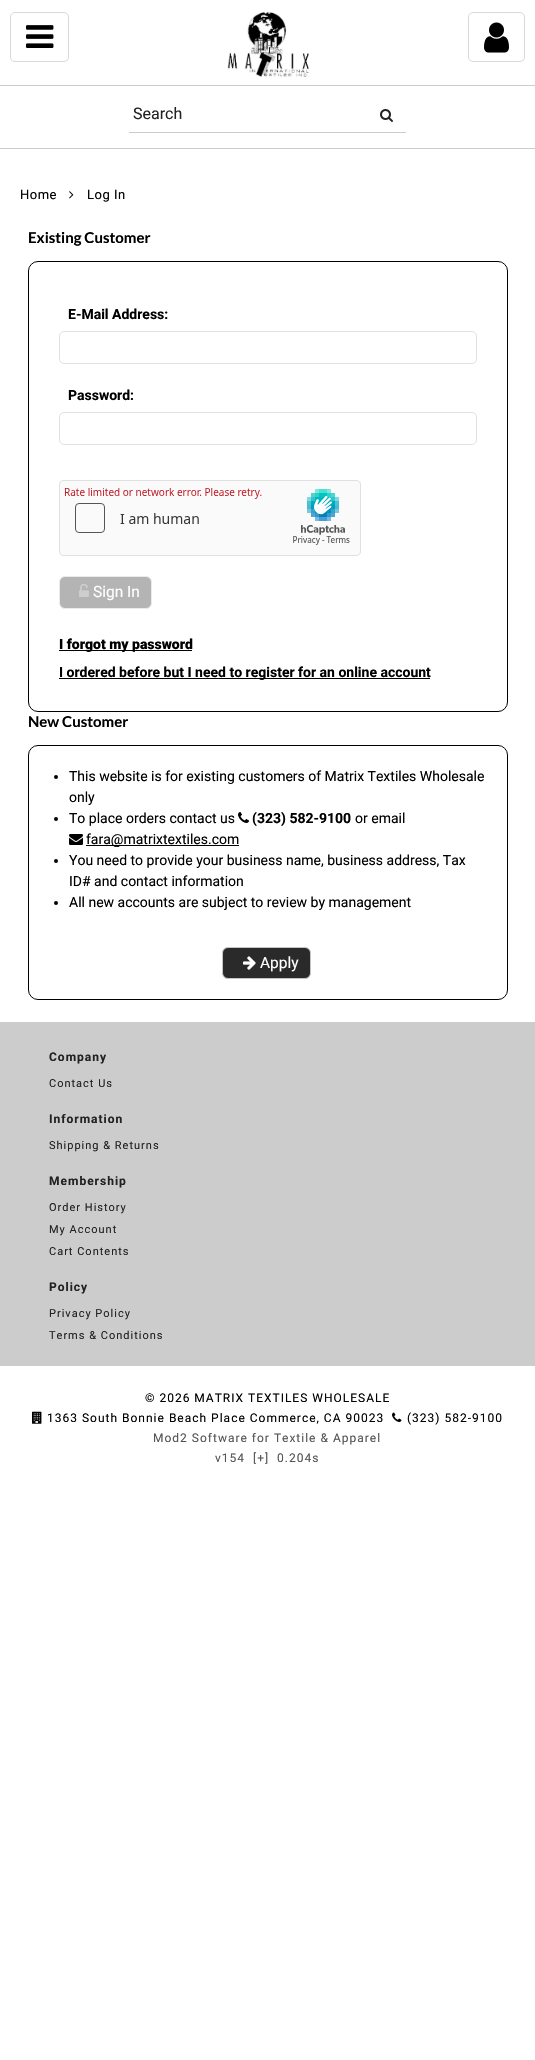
void draw(SkCanvas* canvas) {
	SkPaint paint;
	paint.setAntiAlias(true);
	auto spacedText = [&](const char* s, float x, float y, const SkFont& font, const SkPaint& ink, float letter, float word) {
		std::vector<SkGlyphID> glyphs(font.countText(s, strlen(s), SkTextEncoding::kUTF8));
		std::vector<float> xs(glyphs.size());
		font.textToGlyphs(s, strlen(s), SkTextEncoding::kUTF8, glyphs);
		font.getXPos(glyphs, xs, x);
		float extra = 0;
		for (size_t i = 0; i < glyphs.size(); i++) {
			xs[i] += extra;
			extra += letter + word * (glyphs[i] == font.unicharToGlyph(' '));
		}
		canvas->drawTextBlob(SkTextBlob::MakeFromPosHGlyphs(glyphs, xs, y, font), 0, 0, ink);
	};
	canvas->clear(0xffffffff);
	paint.setStroke(true);
	paint.setStrokeWidth(1);
	paint.setColor(0xffd9d9d9);
	canvas->drawRoundRect(SkRect::MakeXYWH(10.5, 12.5, 58, 49), 4.5, 4.5, paint);
	canvas->drawImageRect(SkImages::DeferredFromEncodedData(SkData::MakeFromFileName("img1.png")), SkRect::MakeXYWH(26, 25, 28, 23), SkSamplingOptions());
	canvas->drawImageRect(SkImages::DeferredFromEncodedData(SkData::MakeFromFileName("img2.png")), SkRect::MakeXYWH(227, 11, 83, 66), SkSamplingOptions());
	canvas->drawRoundRect(SkRect::MakeXYWH(468.5, 12.5, 56, 49), 4.5, 4.5, paint);
	canvas->drawImageRect(SkImages::DeferredFromEncodedData(SkData::MakeFromFileName("img3.png")), SkRect::MakeXYWH(484, 22, 25, 31), SkSamplingOptions());
	paint.setStroke(false);
	paint.setColor(0xffcccccc);
	canvas->drawRect(SkRect::MakeXYWH(0, 85, 535, 1), paint);
	canvas->drawRect(SkRect::MakeXYWH(0, 148, 535, 1), paint);
	canvas->drawRect(SkRect::MakeXYWH(129, 132, 277, 1), paint);
	SkFont f1(fontMgr->matchFamilyStyle("Roboto", SkFontStyle::Normal()), 16);
	f1.setSubpixel(true);
	paint.setColor(0xff222222);
	canvas->drawString("Search", 133, 119, f1, paint);
	canvas->drawImageRect(SkImages::DeferredFromEncodedData(SkData::MakeFromFileName("img4.png")), SkRect::MakeXYWH(380, 109, 13, 13), SkSamplingOptions());
	SkFont f2(fontMgr->matchFamilyStyle("Roboto", SkFontStyle::Normal()), 13);
	f2.setSubpixel(true);
	paint.setColor(0xff000000);
	spacedText("Home", 20, 199, f2, paint, 0.5, 0);
	canvas->drawImageRect(SkImages::DeferredFromEncodedData(SkData::MakeFromFileName("img5.png")), SkRect::MakeXYWH(69, 191, 5, 8), SkSamplingOptions());
	spacedText("Log In", 87, 199, f2, paint, 0.5, 0);
	SkFont f3(fontMgr->matchFamilyStyle("Lato", SkFontStyle::Bold()), 15);
	f3.setSubpixel(true);
	canvas->drawString("Existing Customer", 28, 243, f3, paint);
	paint.setStroke(true);
	canvas->drawRoundRect(SkRect::MakeXYWH(28.5, 261.5, 479, 450), 9.5, 9.5, paint);
	SkFont f4(fontMgr->matchFamilyStyle("Roboto", SkFontStyle::Bold()), 14);
	f4.setSubpixel(true);
	paint.setStroke(false);
	canvas->drawString("E-Mail Address:", 68, 319, f4, paint);
	paint.setStroke(true);
	paint.setColor(0xffdee2e6);
	canvas->drawRoundRect(SkRect::MakeXYWH(59.5, 331.5, 417, 32), 4.5, 4.5, paint);
	paint.setStroke(false);
	paint.setColor(0xff000000);
	canvas->drawString("Password:", 68, 400, f4, paint);
	paint.setStroke(true);
	paint.setColor(0xffdee2e6);
	canvas->drawRoundRect(SkRect::MakeXYWH(59.5, 412.5, 417, 32), 4.5, 4.5, paint);
	canvas->drawImageRect(SkImages::DeferredFromEncodedData(SkData::MakeFromFileName("img6.png")), SkRect::MakeXYWH(59, 480, 302, 76), SkSamplingOptions());
	paint.setStroke(false);
	paint.setColor(0xffb4b4b4);
	canvas->drawRoundRect(SkRect::MakeXYWH(59.5, 576.5, 92, 32), 5.5, 5.5, paint);
	paint.setStroke(true);
	paint.setColor(0xffebebeb);
	canvas->drawRoundRect(SkRect::MakeXYWH(59.5, 576.5, 92, 32), 5.5, 5.5, paint);
	canvas->drawImageRect(SkImages::DeferredFromEncodedData(SkData::MakeFromFileName("img7.png")), SkRect::MakeXYWH(79, 584, 10, 13), SkSamplingOptions());
	SkFont f5(fontMgr->matchFamilyStyle("Roboto", SkFontStyle::Normal()), 15.5);
	f5.setSubpixel(true);
	paint.setStroke(false);
	paint.setColor(0xffffffff);
	canvas->drawString("Sign In", 93, 597, f5, paint);
	paint.setColor(0xff000000);
	canvas->drawRect(SkRect::MakeXYWH(59, 650, 133, 1), paint);
	SkFont f6(fontMgr->matchFamilyStyle("Roboto", SkFontStyle(900, SkFontStyle::kNormal_Width, SkFontStyle::kUpright_Slant)), 14);
	f6.setSubpixel(true);
	canvas->drawString("I forgot my password", 59, 649, f6, paint);
	canvas->drawRect(SkRect::MakeXYWH(59, 678, 371, 1), paint);
	canvas->drawString("I ordered before but I need to register for an online account", 59, 677, f4, paint);
	canvas->drawString("New Customer", 28, 727, f3, paint);
	paint.setStroke(true);
	canvas->drawRoundRect(SkRect::MakeXYWH(28.5, 745.5, 479, 254), 9.5, 9.5, paint);
	paint.setStroke(false);
	canvas->drawCircle(56, 777, 2, paint);
	SkFont f7(fontMgr->matchFamilyStyle("Roboto", SkFontStyle::Normal()), 14);
	f7.setSubpixel(true);
	canvas->drawString("This website is for existing customers of Matrix Textiles Wholesale", 69, 781, f7, paint);
	canvas->drawString("only", 69, 802, f7, paint);
	canvas->drawCircle(56, 819, 2, paint);
	canvas->drawString("To place orders contact us", 69, 823, f7, paint);
	canvas->drawImageRect(SkImages::DeferredFromEncodedData(SkData::MakeFromFileName("img8.png")), SkRect::MakeXYWH(238, 812, 11, 11), SkSamplingOptions());
	canvas->drawString("(323) 582-9100", 252, 823, f4, paint);
	canvas->drawString("or email", 355, 823, f7, paint);
	canvas->drawImageRect(SkImages::DeferredFromEncodedData(SkData::MakeFromFileName("img9.png")), SkRect::MakeXYWH(69, 834, 14, 11), SkSamplingOptions());
	canvas->drawRect(SkRect::MakeXYWH(86, 845, 153, 1), paint);
	canvas->drawString("fara@matrixtextiles.com", 86, 844, f7, paint);
	canvas->drawCircle(56, 861, 2, paint);
	canvas->drawString("You need to provide your business name, business address, Tax", 69, 865, f7, paint);
	canvas->drawString("ID# and contact information", 69, 886, f7, paint);
	canvas->drawCircle(56, 903, 2, paint);
	canvas->drawString("All new accounts are subject to review by management", 69, 907, f7, paint);
	paint.setColor(0xff2a2a2a);
	canvas->drawRoundRect(SkRect::MakeXYWH(222.5, 947.5, 88, 31), 5.5, 5.5, paint);
	paint.setStroke(true);
	paint.setColor(0xffc5c5c5);
	canvas->drawRoundRect(SkRect::MakeXYWH(222.5, 947.5, 88, 31), 5.5, 5.5, paint);
	canvas->drawImageRect(SkImages::DeferredFromEncodedData(SkData::MakeFromFileName("img10.png")), SkRect::MakeXYWH(243, 956, 13, 14), SkSamplingOptions());
	paint.setStroke(false);
	paint.setColor(0xffffffff);
	canvas->drawString("Apply", 260, 968, f5, paint);
	paint.setColor(0xffcccccc);
	canvas->drawRect(SkRect::MakeXYWH(0, 1022, 535, 344), paint);
	SkFont f8(fontMgr->matchFamilyStyle("Roboto", SkFontStyle::Bold()), 12);
	f8.setSubpixel(true);
	paint.setColor(0xff222222);
	spacedText("Company", 49, 1061, f8, paint, 1, 0);
	SkFont f9(fontMgr->matchFamilyStyle("Roboto", SkFontStyle::Normal()), 11);
	f9.setSubpixel(true);
	spacedText("Contact Us", 49, 1087, f9, paint, 1, 0);
	spacedText("Information", 49, 1123, f8, paint, 1, 0);
	spacedText("Shipping & Returns", 49, 1149, f9, paint, 1, 0);
	spacedText("Membership", 49, 1185, f8, paint, 1, 0);
	spacedText("Order History", 49, 1211, f9, paint, 1, 0);
	spacedText("My Account", 49, 1233, f9, paint, 1, 0);
	spacedText("Cart Contents", 49, 1255, f9, paint, 1, 0);
	spacedText("Policy", 49, 1291, f8, paint, 1, 0);
	spacedText("Privacy Policy", 49, 1317, f9, paint, 1, 0);
	spacedText("Terms & Conditions", 49, 1339, f9, paint, 1, 0);
	SkFont f10(fontMgr->matchFamilyStyle("Roboto", SkFontStyle::Normal()), 12);
	f10.setSubpixel(true);
	paint.setColor(0xff000000);
	spacedText("© 2026 MATRIX TEXTILES WHOLESALE", 145, 1402, f10, paint, 1, 0);
	canvas->drawImageRect(SkImages::DeferredFromEncodedData(SkData::MakeFromFileName("img11.png")), SkRect::MakeXYWH(32, 1411, 10, 13), SkSamplingOptions());
	spacedText("1363 South Bonnie Beach Place Commerce, CA 90023", 47, 1422, f10, paint, 1, 0);
	canvas->drawImageRect(SkImages::DeferredFromEncodedData(SkData::MakeFromFileName("img12.png")), SkRect::MakeXYWH(392, 1412, 10, 10), SkSamplingOptions());
	spacedText("(323) 582-9100", 407, 1422, f10, paint, 1, 0);
	paint.setColor(0xff555555);
	spacedText("Mod2 Software for Textile & Apparel", 153, 1442, f10, paint, 1, 0);
	spacedText("v154", 215, 1462, f10, paint, 1, 0);
	spacedText("[+]", 253, 1462, f10, paint, 1, 0);
	spacedText("0.204s", 277, 1462, f10, paint, 1, 0);
}
